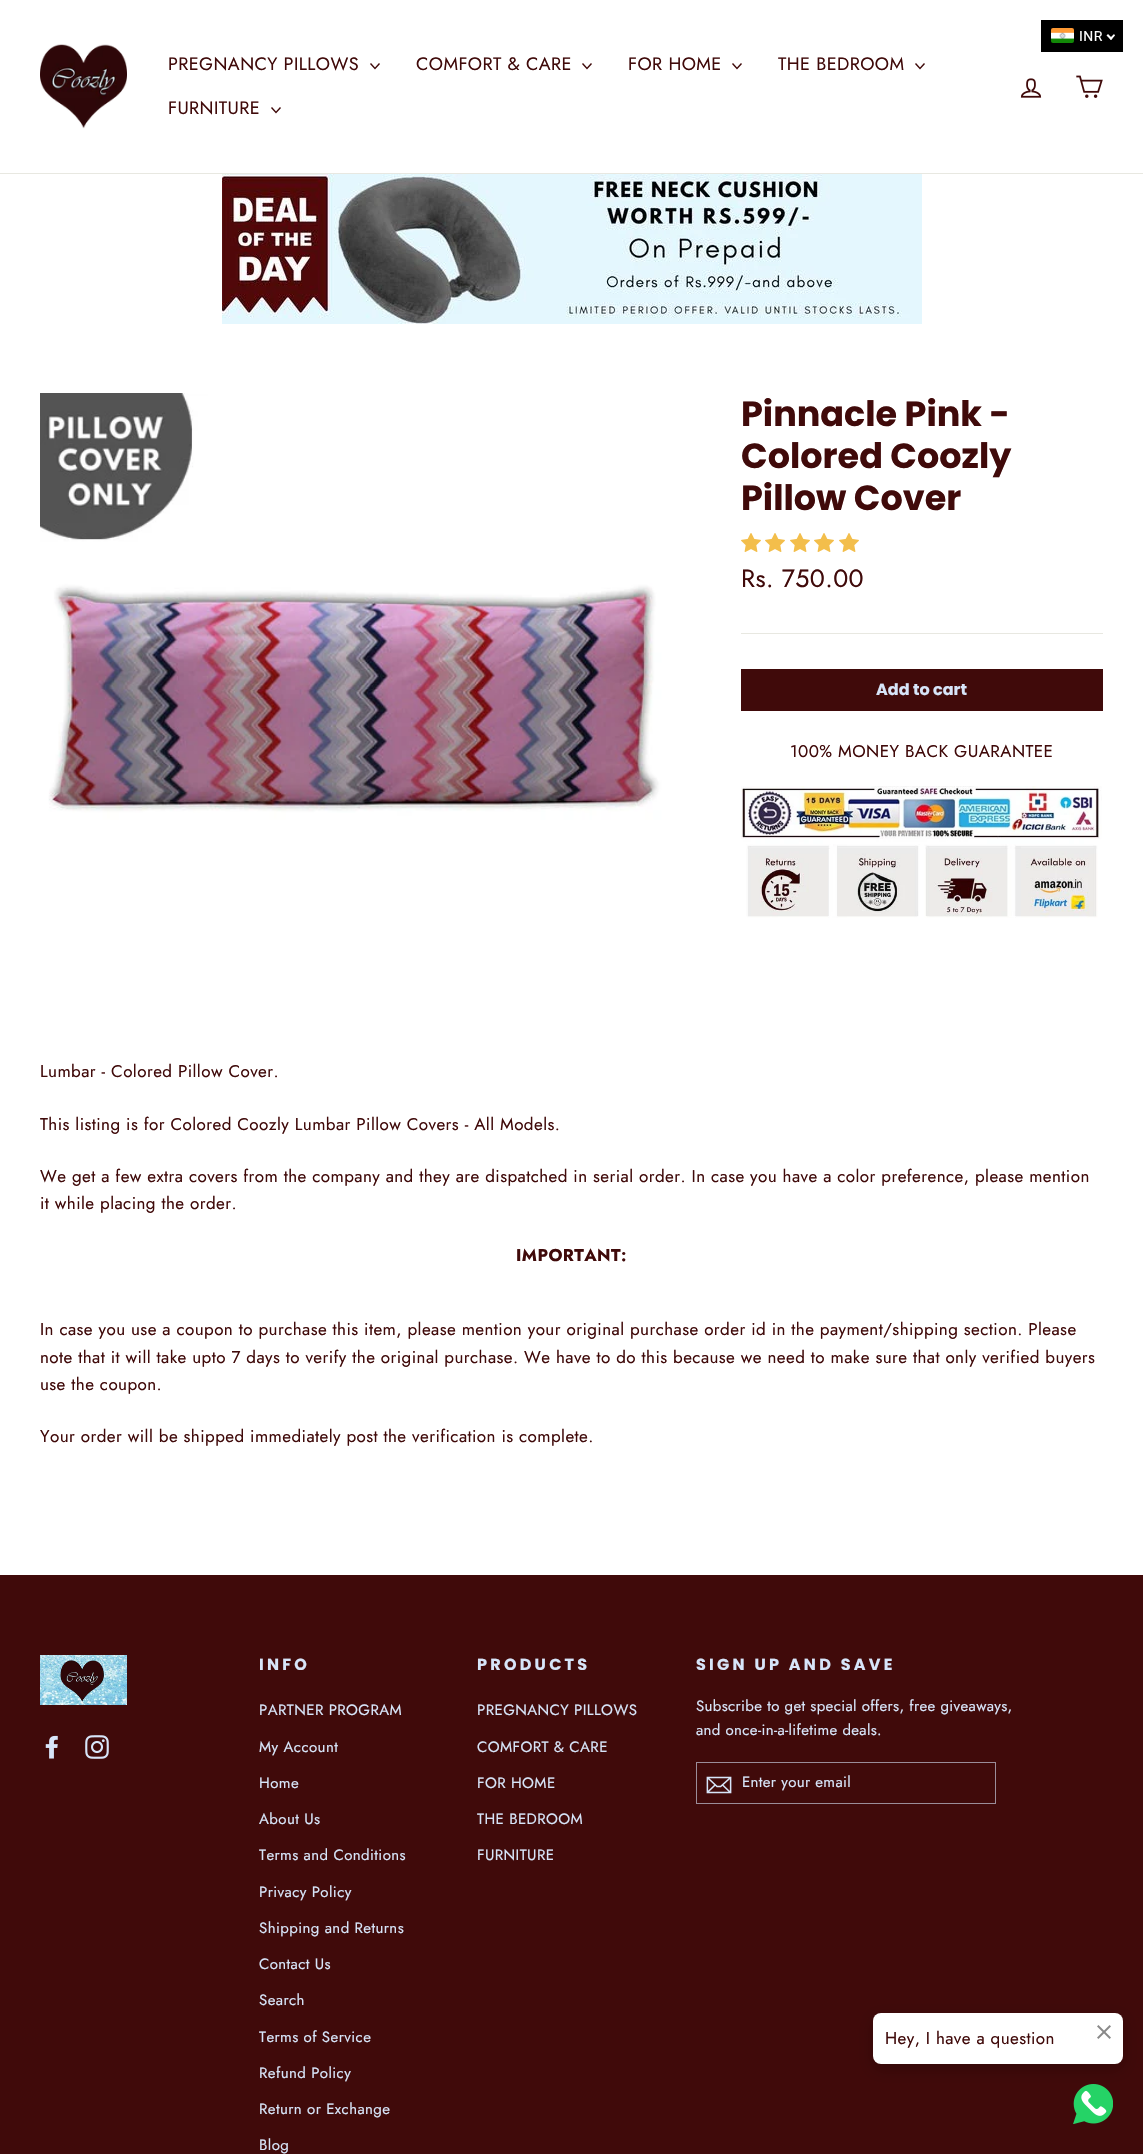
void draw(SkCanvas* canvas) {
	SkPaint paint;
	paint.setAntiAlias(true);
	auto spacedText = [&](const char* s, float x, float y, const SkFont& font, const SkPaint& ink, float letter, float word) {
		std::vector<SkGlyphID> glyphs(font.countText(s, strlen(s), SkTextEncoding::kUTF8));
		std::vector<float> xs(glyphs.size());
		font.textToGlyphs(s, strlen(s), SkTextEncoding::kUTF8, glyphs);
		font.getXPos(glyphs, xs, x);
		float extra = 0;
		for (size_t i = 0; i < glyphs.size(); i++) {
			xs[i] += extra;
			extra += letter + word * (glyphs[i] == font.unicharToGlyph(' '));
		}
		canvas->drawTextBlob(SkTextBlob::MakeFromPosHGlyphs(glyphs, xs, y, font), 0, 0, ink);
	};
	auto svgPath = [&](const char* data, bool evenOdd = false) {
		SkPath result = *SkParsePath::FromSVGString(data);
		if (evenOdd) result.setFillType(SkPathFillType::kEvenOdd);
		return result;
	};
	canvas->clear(0xffffffff);
	paint.setColor(0xff000000);
	canvas->drawRect(SkRect::MakeXYWH(1041, 20, 82, 32), paint);
	canvas->drawImageRect(SkImages::DeferredFromEncodedData(SkData::MakeFromFileName("img1.png")), SkRect::MakeXYWH(1051, 28, 23, 15), SkSamplingOptions());
	SkFont f1(fontMgr->matchFamilyStyle("Roboto", SkFontStyle::Normal()), 14);
	f1.setSubpixel(true);
	paint.setColor(0xffffffff);
	spacedText("INR", 1079, 41, f1, paint, 0.42, 0);
	canvas->drawPath(svgPath("M1114 34L1115 35.5L1111 40L1109.5 38.5Z"), paint);
	canvas->drawPath(svgPath("M1108 34L1112.5 38.5L1111 40L1106.5 35.5Z"), paint);
	paint.setColor(0xffe8e8e1);
	canvas->drawRect(SkRect::MakeXYWH(0, 173, 1143, 1), paint);
	canvas->drawImageRect(SkImages::DeferredFromEncodedData(SkData::MakeFromFileName("img2.png")), SkRect::MakeXYWH(40, 44, 87, 85), SkSamplingOptions());
	SkFont f2(fontMgr->matchFamilyStyle("Jost", SkFontStyle::Normal()), 18);
	f2.setSubpixel(true);
	paint.setColor(0xff400a0a);
	spacedText("PREGNANCY PILLOWS", 168, 70, f2, paint, 0.42, 0);
	paint.setStroke(true);
	paint.setStrokeWidth(1.4);
	canvas->drawPath(svgPath("M370.5 63.5L375 68.5L379.5 63.5"), paint);
	paint.setStroke(false);
	spacedText("COMFORT & CARE", 416, 70, f2, paint, 0.42, 0);
	paint.setStroke(true);
	canvas->drawPath(svgPath("M582.5 63.5L587 68.5L591.5 63.5"), paint);
	paint.setStroke(false);
	spacedText("FOR HOME", 628, 70, f2, paint, 0.42, 0);
	paint.setStroke(true);
	canvas->drawPath(svgPath("M732.5 63.5L737 68.5L741.5 63.5"), paint);
	paint.setStroke(false);
	spacedText("THE BEDROOM", 778, 70, f2, paint, 0.42, 0);
	paint.setStroke(true);
	canvas->drawPath(svgPath("M915.5 63.5L920 68.5L924.5 63.5"), paint);
	paint.setStroke(false);
	spacedText("FURNITURE", 168, 114, f2, paint, 0.42, 0);
	paint.setStroke(true);
	canvas->drawPath(svgPath("M271.5 107.5L276 112.5L280.5 107.5"), paint);
	canvas->drawImageRect(SkImages::DeferredFromEncodedData(SkData::MakeFromFileName("img3.png")), SkRect::MakeXYWH(1020, 78, 22, 20), SkSamplingOptions());
	canvas->drawImageRect(SkImages::DeferredFromEncodedData(SkData::MakeFromFileName("img4.png")), SkRect::MakeXYWH(1076, 75, 27, 23), SkSamplingOptions());
	canvas->drawImageRect(SkImages::DeferredFromEncodedData(SkData::MakeFromFileName("img5.png")), SkRect::MakeXYWH(222, 174, 700, 150), SkSamplingOptions());
	canvas->drawImageRect(SkImages::DeferredFromEncodedData(SkData::MakeFromFileName("img6.png")), SkRect::MakeXYWH(40, 393, 626, 625), SkSamplingOptions());
	SkFont f3(fontMgr->matchFamilyStyle("Poppins", SkFontStyle::Bold()), 35);
	f3.setSubpixel(true);
	paint.setStroke(false);
	canvas->drawString("Pinnacle Pink -", 741, 426, f3, paint);
	canvas->drawString("Colored Coozly", 741, 468, f3, paint);
	canvas->drawString("Pillow Cover", 741, 510, f3, paint);
	canvas->drawImageRect(SkImages::DeferredFromEncodedData(SkData::MakeFromFileName("img7.png")), SkRect::MakeXYWH(741, 533, 20, 19), SkSamplingOptions());
	canvas->drawImageRect(SkImages::DeferredFromEncodedData(SkData::MakeFromFileName("img7.png")), SkRect::MakeXYWH(765, 533, 20, 19), SkSamplingOptions());
	canvas->drawImageRect(SkImages::DeferredFromEncodedData(SkData::MakeFromFileName("img7.png")), SkRect::MakeXYWH(790, 533, 20, 19), SkSamplingOptions());
	canvas->drawImageRect(SkImages::DeferredFromEncodedData(SkData::MakeFromFileName("img7.png")), SkRect::MakeXYWH(814, 533, 20, 19), SkSamplingOptions());
	canvas->drawImageRect(SkImages::DeferredFromEncodedData(SkData::MakeFromFileName("img7.png")), SkRect::MakeXYWH(839, 533, 20, 19), SkSamplingOptions());
	SkFont f4(fontMgr->matchFamilyStyle("Jost", SkFontStyle::Normal()), 25);
	f4.setSubpixel(true);
	spacedText("Rs. 750.00", 741, 587, f4, paint, 0.42, 0);
	paint.setColor(0xffe8e8e1);
	canvas->drawRect(SkRect::MakeXYWH(741, 633, 362, 1), paint);
	paint.setColor(0xff400a0a);
	canvas->drawRect(SkRect::MakeXYWH(741, 669, 362, 42), paint);
	SkFont f5(fontMgr->matchFamilyStyle("Poppins", SkFontStyle::Bold()), 16);
	f5.setSubpixel(true);
	paint.setColor(0xffd7e5f9);
	canvas->drawString("Add to cart", 876, 695, f5, paint);
	SkFont f6(fontMgr->matchFamilyStyle("Jost", SkFontStyle::Normal()), 17);
	f6.setSubpixel(true);
	paint.setColor(0xff400a0a);
	spacedText("100% MONEY BACK GUARANTEE", 790, 757, f6, paint, 0.42, 0);
	canvas->drawImageRect(SkImages::DeferredFromEncodedData(SkData::MakeFromFileName("img8.png")), SkRect::MakeXYWH(741, 786, 361, 132), SkSamplingOptions());
	spacedText("Lumbar - Colored Pillow Cover.", 40, 1077, f6, paint, 0.42, 0);
	spacedText("This listing is for Colored Coozly Lumbar Pillow Covers - All Models.", 40, 1130, f6, paint, 0.42, 0);
	spacedText("We get a few extra covers from the company and they are dispatched in serial order. In case you have a color preference, please mention", 40, 1182, f6, paint, 0.42, 0);
	spacedText("it while placing the order.", 40, 1209, f6, paint, 0.42, 0);
	SkFont f7(fontMgr->matchFamilyStyle("Jost", SkFontStyle::Bold()), 17);
	f7.setSubpixel(true);
	spacedText("IMPORTANT:", 516, 1261, f7, paint, 0.42, 0);
	spacedText("In case you use a coupon to purchase this item, please mention your original purchase order id in the payment/shipping section. Please", 40, 1335, f6, paint, 0.42, 0);
	spacedText("note that it will take upto 7 days to verify the original purchase. We have to do this because we need to make sure that only verified buyers", 40, 1363, f6, paint, 0.42, 0);
	spacedText("use the coupon.", 40, 1390, f6, paint, 0.42, 0);
	spacedText("Your order will be shipped immediately post the verification is complete.", 40, 1442, f6, paint, 0.42, 0);
	canvas->drawRect(SkRect::MakeXYWH(0, 1575, 1143, 579), paint);
	canvas->drawImageRect(SkImages::DeferredFromEncodedData(SkData::MakeFromFileName("img9.png")), SkRect::MakeXYWH(40, 1655, 87, 50), SkSamplingOptions());
	canvas->drawImageRect(SkImages::DeferredFromEncodedData(SkData::MakeFromFileName("img10.png")), SkRect::MakeXYWH(45, 1735, 13, 24), SkSamplingOptions());
	canvas->drawImageRect(SkImages::DeferredFromEncodedData(SkData::MakeFromFileName("img11.png")), SkRect::MakeXYWH(85, 1735, 24, 24), SkSamplingOptions());
	paint.setColor(0xffd7e5f9);
	spacedText("INFO", 259, 1670, f5, paint, 3.25, 0);
	SkFont f8(fontMgr->matchFamilyStyle("Jost", SkFontStyle::Normal()), 15);
	f8.setSubpixel(true);
	spacedText("PARTNER PROGRAM", 259, 1715, f8, paint, 0.42, 0);
	spacedText("My Account", 259, 1752, f8, paint, 0.42, 0);
	spacedText("Home", 259, 1788, f8, paint, 0.42, 0);
	spacedText("About Us", 259, 1824, f8, paint, 0.42, 0);
	spacedText("Terms and Conditions", 259, 1860, f8, paint, 0.42, 0);
	spacedText("Privacy Policy", 259, 1897, f8, paint, 0.42, 0);
	spacedText("Shipping and Returns", 259, 1933, f8, paint, 0.42, 0);
	spacedText("Contact Us", 259, 1969, f8, paint, 0.42, 0);
	spacedText("Search", 259, 2005, f8, paint, 0.42, 0);
	spacedText("Terms of Service", 259, 2042, f8, paint, 0.42, 0);
	spacedText("Refund Policy", 259, 2078, f8, paint, 0.42, 0);
	spacedText("Return or Exchange", 259, 2114, f8, paint, 0.42, 0);
	spacedText("Blog", 259, 2150, f8, paint, 0.42, 0);
	spacedText("PRODUCTS", 477, 1670, f5, paint, 3.25, 0);
	spacedText("PREGNANCY PILLOWS", 477, 1715, f8, paint, 0.42, 0);
	spacedText("COMFORT & CARE", 477, 1752, f8, paint, 0.42, 0);
	spacedText("FOR HOME", 477, 1788, f8, paint, 0.42, 0);
	spacedText("THE BEDROOM", 477, 1824, f8, paint, 0.42, 0);
	spacedText("FURNITURE", 477, 1860, f8, paint, 0.42, 0);
	spacedText("SIGN UP AND SAVE", 696, 1670, f5, paint, 3.25, 0);
	spacedText("Subscribe to get special offers, free giveaways,", 696, 1711, f8, paint, 0.35, 0);
	spacedText("and once-in-a-lifetime deals.", 696, 1735, f8, paint, 0.35, 0);
	paint.setStroke(true);
	paint.setStrokeWidth(1);
	paint.setColor(0xff9b8d99);
	canvas->drawRect(SkRect::MakeXYWH(696.5, 1762.5, 299, 41), paint);
	canvas->drawImageRect(SkImages::DeferredFromEncodedData(SkData::MakeFromFileName("img12.png")), SkRect::MakeXYWH(706, 1776, 26, 18), SkSamplingOptions());
	paint.setStroke(false);
	paint.setColor(0xffd7e5f9);
	spacedText("Enter your email", 742, 1787, f8, paint, 0.35, 0);
	canvas->drawImageRect(SkImages::DeferredFromEncodedData(SkData::MakeFromFileName("img14.png")), SkRect::MakeXYWH(1073, 2084, 40, 40), SkSamplingOptions());
	paint.setColor(0x33000000);
	paint.setMaskFilter(SkMaskFilter::MakeBlur(kNormal_SkBlurStyle, 7.5));
	canvas->drawRoundRect(SkRect::MakeXYWH(873, 2018, 250, 51), 8, 8, paint);
	paint.setMaskFilter(nullptr);
	paint.setColor(0xffffffff);
	canvas->drawRoundRect(SkRect::MakeXYWH(873, 2013, 250, 51), 8, 8, paint);
	paint.setColor(0xff400a0a);
	spacedText("Hey, I have a question", 885, 2044, f6, paint, 0.42, 0);
	canvas->drawImageRect(SkImages::DeferredFromEncodedData(SkData::MakeFromFileName("img13.png")), SkRect::MakeXYWH(1097, 2025, 14, 14), SkSamplingOptions());
}
